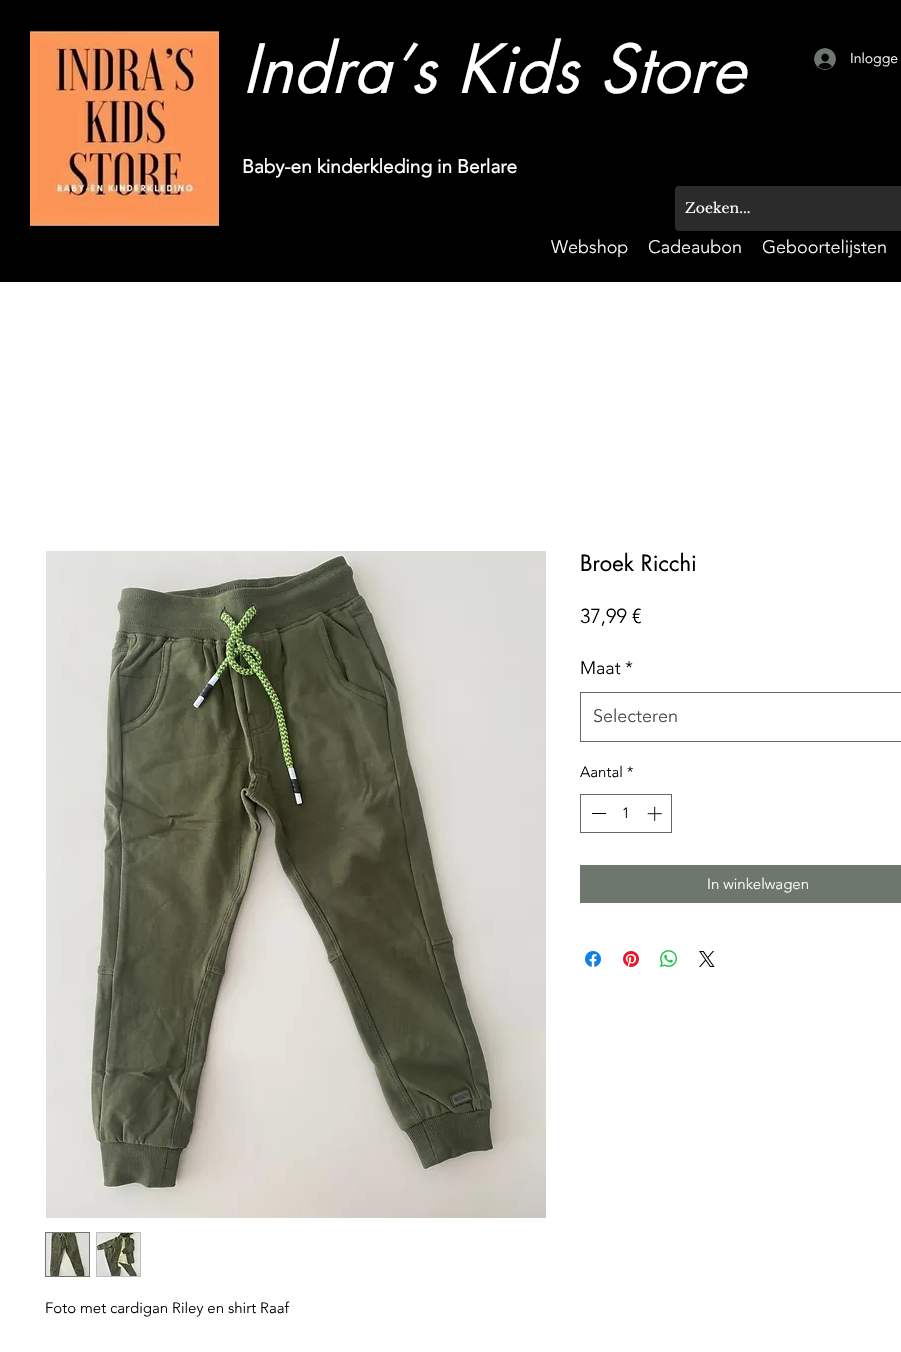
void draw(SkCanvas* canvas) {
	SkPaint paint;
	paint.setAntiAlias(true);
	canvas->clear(0xffffffff);
	paint.setColor(0xff000000);
	canvas->drawRect(SkRect::MakeXYWH(0, 0, 901, 282), paint);
	canvas->drawImageRect(SkImages::DeferredFromEncodedData(SkData::MakeFromFileName("img1.png")), SkRect::MakeXYWH(30, 31, 189, 195), SkSamplingOptions());
	SkFont f1(fontMgr->matchFamilyStyle("futura", SkFontStyle::Italic()), 66);
	f1.setSubpixel(true);
	paint.setColor(0xffffffff);
	canvas->drawString("Indra’s Kids Store", 242, 93, f1, paint);
	canvas->drawImageRect(SkImages::DeferredFromEncodedData(SkData::MakeFromFileName("img2.png")), SkRect::MakeXYWH(814, 48, 22, 22), SkSamplingOptions());
	SkFont f2(fontMgr->matchFamilyStyle("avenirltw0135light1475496", SkFontStyle(300, SkFontStyle::kNormal_Width, SkFontStyle::kUpright_Slant)), 14);
	f2.setSubpixel(true);
	canvas->drawString("Inlogge", 850, 63, f2, paint);
	SkFont f3(fontMgr->matchFamilyStyle("avenirltw0135light1475496", SkFontStyle::Bold()), 19);
	f3.setSubpixel(true);
	canvas->drawString("Baby-en kinderkleding in Berlare", 242, 173, f3, paint);
	paint.setColor(0xff2b2b2b);
	canvas->drawRoundRect(SkRect::MakeXYWH(675, 186, 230, 45), 4, 4, paint);
	SkFont f4(fontMgr->matchFamilyStyle("Libre Baskerville", SkFontStyle::Normal()), 14);
	f4.setSubpixel(true);
	paint.setColor(0xffffffff);
	canvas->drawString("Zoeken...", 685, 213, f4, paint);
	SkFont f5(fontMgr->matchFamilyStyle("avenirltw0135light1475496", SkFontStyle(300, SkFontStyle::kNormal_Width, SkFontStyle::kUpright_Slant)), 18);
	f5.setSubpixel(true);
	canvas->drawString("Webshop", 551, 253, f5, paint);
	canvas->drawString("Cadeaubon", 648, 253, f5, paint);
	canvas->drawString("Geboortelijsten", 762, 253, f5, paint);
	SkFont f6(fontMgr->matchFamilyStyle("futura", SkFontStyle::Normal()), 22);
	f6.setSubpixel(true);
	paint.setColor(0xff000000);
	canvas->drawString("Broek Ricchi", 580, 571, f6, paint);
	SkFont f7(fontMgr->matchFamilyStyle("avenirltw0135light1475496", SkFontStyle(300, SkFontStyle::kNormal_Width, SkFontStyle::kUpright_Slant)), 20);
	f7.setSubpixel(true);
	canvas->drawString("37,99 €", 580, 623, f7, paint);
	canvas->drawString("Maat", 580, 674, f5, paint);
	canvas->drawString("*", 625, 674, f5, paint);
	paint.setStroke(true);
	paint.setStrokeWidth(1);
	paint.setColor(0xff666666);
	canvas->drawRect(SkRect::MakeXYWH(580.5, 692.5, 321, 49), paint);
	paint.setStroke(false);
	paint.setColor(0xff444444);
	canvas->drawString("Selecteren", 593, 722, f5, paint);
	SkFont f8(fontMgr->matchFamilyStyle("avenirltw0135light1475496", SkFontStyle(300, SkFontStyle::kNormal_Width, SkFontStyle::kUpright_Slant)), 15);
	f8.setSubpixel(true);
	paint.setColor(0xff000000);
	canvas->drawString("Aantal *", 580, 777, f8, paint);
	paint.setStroke(true);
	paint.setColor(0xff666666);
	canvas->drawRect(SkRect::MakeXYWH(580.5, 794.5, 91, 38), paint);
	paint.setStroke(false);
	paint.setColor(0xff000000);
	canvas->drawRect(SkRect::MakeXYWH(592, 813, 14, 1), paint);
	canvas->drawString("1", 622, 818, f8, paint);
	canvas->drawImageRect(SkImages::DeferredFromEncodedData(SkData::MakeFromFileName("img3.png")), SkRect::MakeXYWH(647, 806, 15, 15), SkSamplingOptions());
	paint.setColor(0xff6e776e);
	canvas->drawRect(SkRect::MakeXYWH(580, 865, 321, 38), paint);
	paint.setColor(0xffffffff);
	canvas->drawString("In winkelwagen", 707, 889, f8, paint);
	canvas->drawImageRect(SkImages::DeferredFromEncodedData(SkData::MakeFromFileName("img4.png")), SkRect::MakeXYWH(585, 951, 16, 16), SkSamplingOptions());
	canvas->drawImageRect(SkImages::DeferredFromEncodedData(SkData::MakeFromFileName("img5.png")), SkRect::MakeXYWH(623, 951, 16, 16), SkSamplingOptions());
	canvas->drawImageRect(SkImages::DeferredFromEncodedData(SkData::MakeFromFileName("img6.png")), SkRect::MakeXYWH(660, 950, 17, 17), SkSamplingOptions());
	canvas->drawImageRect(SkImages::DeferredFromEncodedData(SkData::MakeFromFileName("img7.png")), SkRect::MakeXYWH(699, 951, 16, 16), SkSamplingOptions());
	canvas->drawImageRect(SkImages::DeferredFromEncodedData(SkData::MakeFromFileName("img8.png")), SkRect::MakeXYWH(46, 551, 500, 667), SkSamplingOptions());
	paint.setStroke(true);
	paint.setColor(0xff6e776e);
	canvas->drawRect(SkRect::MakeXYWH(45.5, 1232.5, 44, 44), paint);
	canvas->drawImageRect(SkImages::DeferredFromEncodedData(SkData::MakeFromFileName("img9.png")), SkRect::MakeXYWH(46, 1233, 43, 43), SkSamplingOptions());
	paint.setStroke(false);
	paint.setColor(0xffbfbfbf);
	canvas->drawRect(SkRect::MakeXYWH(96, 1232, 45, 45), paint);
	canvas->drawImageRect(SkImages::DeferredFromEncodedData(SkData::MakeFromFileName("img10.png")), SkRect::MakeXYWH(97, 1233, 43, 43), SkSamplingOptions());
	paint.setColor(0xff000000);
	canvas->drawString("Foto met cardigan Riley en shirt Raaf", 45, 1313, f8, paint);
}
